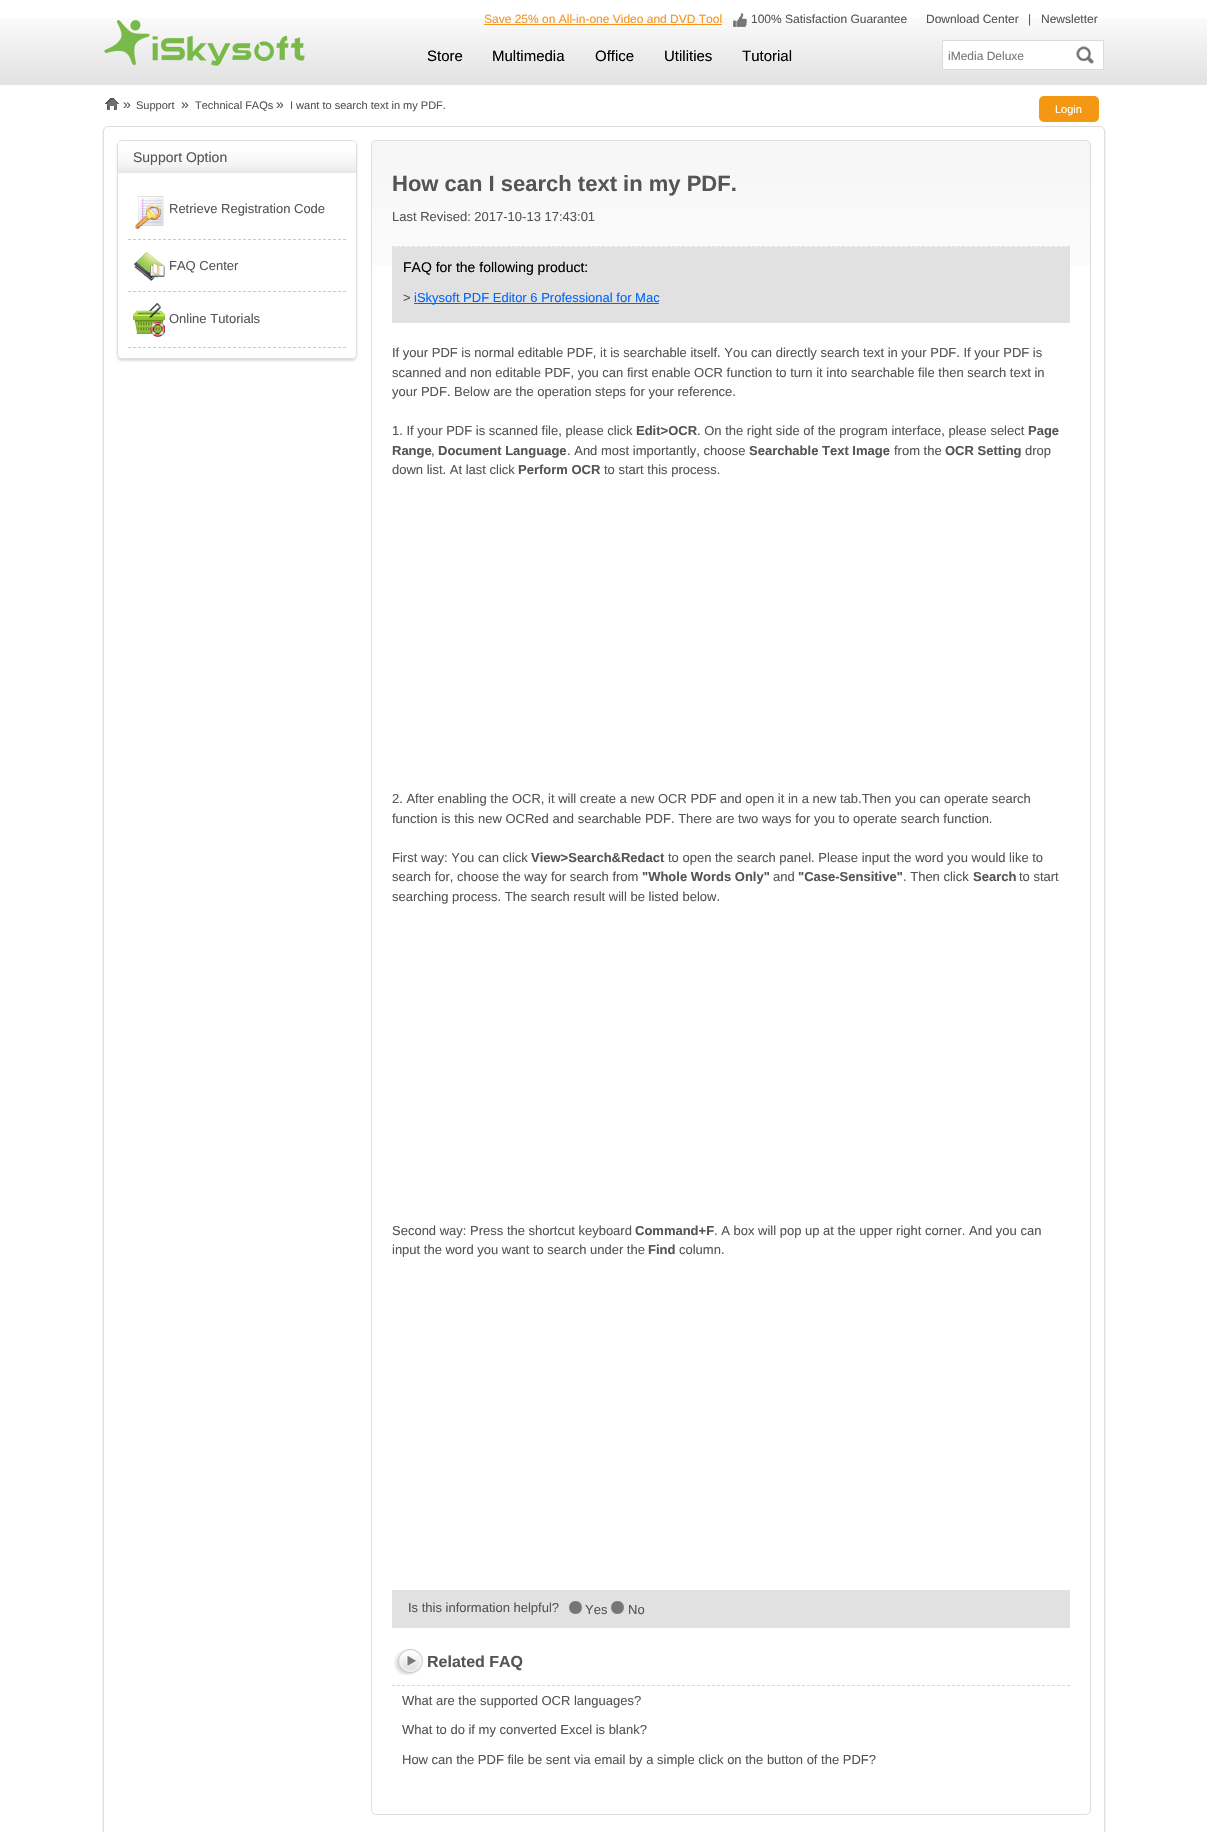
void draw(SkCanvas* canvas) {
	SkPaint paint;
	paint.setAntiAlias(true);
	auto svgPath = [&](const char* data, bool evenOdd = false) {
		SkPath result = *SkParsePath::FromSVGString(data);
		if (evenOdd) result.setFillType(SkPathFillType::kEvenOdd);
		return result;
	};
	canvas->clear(0xffffffff);
	canvas->drawImageRect(SkImages::DeferredFromEncodedData(SkData::MakeFromFileName("img1.png")), SkRect::MakeXYWH(0, 18, 1207, 67), SkSamplingOptions());
	canvas->drawImageRect(SkImages::DeferredFromEncodedData(SkData::MakeFromFileName("img2.png")), SkRect::MakeXYWH(104, 20, 201, 46), SkSamplingOptions());
	SkFont f1(fontMgr->matchFamilyStyle("Liberation Sans", SkFontStyle::Normal()), 12);
	f1.setSubpixel(true);
	paint.setColor(0xfff69626);
	canvas->drawString("Save 25% on All-in-one Video and DVD Tool", 484, 23, f1, paint);
	canvas->drawRect(SkRect::MakeXYWH(484, 24, 238, 1), paint);
	canvas->drawImageRect(SkImages::DeferredFromEncodedData(SkData::MakeFromFileName("img3.png")), SkRect::MakeXYWH(733, 13, 14, 14), SkSamplingOptions());
	paint.setColor(0xff555555);
	canvas->drawString("100% Satisfaction Guarantee", 751, 23, f1, paint);
	canvas->drawString("Download Center", 926, 23, f1, paint);
	canvas->drawString("|", 1028, 23, f1, paint);
	canvas->drawString("Newsletter", 1041, 23, f1, paint);
	SkFont f2(fontMgr->matchFamilyStyle("Liberation Sans", SkFontStyle::Normal()), 15);
	f2.setSubpixel(true);
	paint.setColor(0xff000000);
	canvas->drawString("Store", 427, 61, f2, paint);
	canvas->drawString("Multimedia", 492, 61, f2, paint);
	canvas->drawString("Office", 595, 61, f2, paint);
	canvas->drawString("Utilities", 664, 61, f2, paint);
	canvas->drawString("Tutorial", 742, 61, f2, paint);
	paint.setColor(0xffffffff);
	canvas->drawRect(SkRect::MakeXYWH(942.5, 40.5, 161, 29), paint);
	paint.setStroke(true);
	paint.setStrokeWidth(1);
	paint.setColor(0xffdbdbdb);
	canvas->drawRect(SkRect::MakeXYWH(942.5, 40.5, 161, 29), paint);
	paint.setStroke(false);
	paint.setColor(0xff777777);
	canvas->drawString("iMedia Deluxe", 948, 60, f1, paint);
	canvas->drawImageRect(SkImages::DeferredFromEncodedData(SkData::MakeFromFileName("img4.png")), SkRect::MakeXYWH(1076, 46, 18, 18), SkSamplingOptions());
	canvas->drawImageRect(SkImages::DeferredFromEncodedData(SkData::MakeFromFileName("img5.png")), SkRect::MakeXYWH(105, 98, 14, 12), SkSamplingOptions());
	SkFont f3(fontMgr->matchFamilyStyle("Liberation Sans", SkFontStyle::Normal()), 14);
	f3.setSubpixel(true);
	paint.setColor(0xff555555);
	canvas->drawString("»", 123, 109, f3, paint);
	SkFont f4(fontMgr->matchFamilyStyle("Liberation Sans", SkFontStyle::Normal()), 11);
	f4.setSubpixel(true);
	canvas->drawString("Support", 136, 109, f4, paint);
	canvas->drawString("»", 181, 109, f3, paint);
	canvas->drawString("Technical FAQs", 195, 109, f4, paint);
	canvas->drawString("»", 276, 109, f3, paint);
	canvas->drawString("I want to search text in my PDF.", 290, 109, f4, paint);
	paint.setColor(0xfff49712);
	canvas->drawRoundRect(SkRect::MakeXYWH(1039, 96, 60, 26), 5, 5, paint);
	paint.setColor(0xffffffff);
	canvas->drawString("Login", 1055, 113, f4, paint);
	canvas->save();
	canvas->clipPath(svgPath("M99 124H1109V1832H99ZM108 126H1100C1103 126 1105 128 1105 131V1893C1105 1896 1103 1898 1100 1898H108C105 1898 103 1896 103 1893V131C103 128 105 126 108 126Z", true), true);
	paint.setColor(0xffdddddd);
	paint.setMaskFilter(SkMaskFilter::MakeBlur(kNormal_SkBlurStyle, 1));
	canvas->drawRoundRect(SkRect::MakeXYWH(103, 128, 1002, 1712), 5, 5, paint);
	paint.setMaskFilter(nullptr);
	canvas->restore();
	paint.setStroke(true);
	canvas->drawRoundRect(SkRect::MakeXYWH(103.5, 126.5, 1001, 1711), 4.5, 4.5, paint);
	canvas->save();
	canvas->clipPath(svgPath("M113 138H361V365H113ZM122 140H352C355 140 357 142 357 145V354C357 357 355 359 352 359H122C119 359 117 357 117 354V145C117 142 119 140 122 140Z", true), true);
	paint.setStroke(false);
	paint.setMaskFilter(SkMaskFilter::MakeBlur(kNormal_SkBlurStyle, 1));
	canvas->drawRoundRect(SkRect::MakeXYWH(117, 142, 240, 219), 5, 5, paint);
	paint.setMaskFilter(nullptr);
	canvas->restore();
	paint.setStroke(true);
	canvas->drawRoundRect(SkRect::MakeXYWH(117.5, 140.5, 239, 218), 4.5, 4.5, paint);
	canvas->drawImageRect(SkImages::DeferredFromEncodedData(SkData::MakeFromFileName("img6.png")), SkRect::MakeXYWH(118, 141, 238, 32), SkSamplingOptions());
	paint.setStroke(false);
	paint.setColor(0xff555555);
	canvas->drawString("Support Option", 133, 162, f3, paint);
	paint.setStroke(true);
	paint.setColor(0xffcbcbcb);
	paint.setPathEffect(SkDashPathEffect::Make({{3, 2}}, 0));
	canvas->drawPath(svgPath("M128 239.5H346"), paint);
	paint.setPathEffect(nullptr);
	canvas->drawImageRect(SkImages::DeferredFromEncodedData(SkData::MakeFromFileName("img7.png")), SkRect::MakeXYWH(135, 196, 29, 34), SkSamplingOptions());
	SkFont f5(fontMgr->matchFamilyStyle("Liberation Sans", SkFontStyle::Normal()), 13);
	f5.setSubpixel(true);
	paint.setStroke(false);
	paint.setColor(0xff555555);
	canvas->drawString("Retrieve Registration Code", 169, 213, f5, paint);
	paint.setStroke(true);
	paint.setColor(0xffcbcbcb);
	paint.setPathEffect(SkDashPathEffect::Make({{3, 2}}, 0));
	canvas->drawPath(svgPath("M128 291.5H346"), paint);
	paint.setPathEffect(nullptr);
	canvas->drawImageRect(SkImages::DeferredFromEncodedData(SkData::MakeFromFileName("img8.png")), SkRect::MakeXYWH(134, 252, 31, 29), SkSamplingOptions());
	paint.setStroke(false);
	paint.setColor(0xff555555);
	canvas->drawString("FAQ Center", 169, 270, f5, paint);
	paint.setStroke(true);
	paint.setColor(0xffcbcbcb);
	paint.setPathEffect(SkDashPathEffect::Make({{3, 2}}, 0));
	canvas->drawPath(svgPath("M128 347.5H346"), paint);
	paint.setPathEffect(nullptr);
	canvas->drawImageRect(SkImages::DeferredFromEncodedData(SkData::MakeFromFileName("img9.png")), SkRect::MakeXYWH(133, 303, 32, 34), SkSamplingOptions());
	paint.setStroke(false);
	paint.setColor(0xff555555);
	canvas->drawString("Online Tutorials", 169, 323, f5, paint);
	canvas->drawImageRect(SkImages::DeferredFromEncodedData(SkData::MakeFromFileName("img10.png")), SkRect::MakeXYWH(371, 141, 720, 125), SkSamplingOptions());
	paint.setStroke(true);
	paint.setColor(0xffdddddd);
	canvas->drawRoundRect(SkRect::MakeXYWH(371.5, 140.5, 719, 1674), 4.5, 4.5, paint);
	SkFont f6(fontMgr->matchFamilyStyle("Liberation Sans", SkFontStyle::Bold()), 22);
	f6.setSubpixel(true);
	paint.setStroke(false);
	paint.setColor(0xff555555);
	canvas->drawString("How can I search text in my PDF.", 392, 191, f6, paint);
	canvas->drawString("Last Revised: 2017-10-13 17:43:01", 392, 221, f5, paint);
	paint.setStroke(true);
	paint.setColor(0xffdedede);
	paint.setPathEffect(SkDashPathEffect::Make({{3, 2}}, 0));
	canvas->drawPath(svgPath("M392 246.5H1070"), paint);
	paint.setPathEffect(nullptr);
	paint.setStroke(false);
	paint.setColor(0xffe1e1e1);
	canvas->drawRect(SkRect::MakeXYWH(392, 247, 678, 76), paint);
	paint.setColor(0xff000000);
	canvas->drawString("FAQ for the following product:", 403, 272, f3, paint);
	paint.setColor(0xff555555);
	canvas->drawString(">", 403, 302, f5, paint);
	paint.setColor(0xff0066ff);
	canvas->drawRect(SkRect::MakeXYWH(414, 303, 245, 1), paint);
	canvas->drawString("iSkysoft PDF Editor 6 Professional for Mac", 414, 302, f5, paint);
	paint.setColor(0xff555555);
	canvas->drawString("If your PDF is normal editable PDF, it is searchable itself. You can directly search text in your PDF. If your PDF is", 392, 357, f5, paint);
	canvas->drawString("scanned and non editable PDF, you can first enable OCR function to turn it into searchable file then search text in", 392, 377, f5, paint);
	canvas->drawString("your PDF. Below are the operation steps for your reference.", 392, 396, f5, paint);
	canvas->drawString("1. If your PDF is scanned file, please click", 392, 435, f5, paint);
	SkFont f7(fontMgr->matchFamilyStyle("Liberation Sans", SkFontStyle::Bold()), 13);
	f7.setSubpixel(true);
	canvas->drawString("Edit>OCR", 636, 435, f7, paint);
	canvas->drawString(". On the right side of the program interface, please select", 697, 435, f5, paint);
	canvas->drawString("Page", 1028, 435, f7, paint);
	canvas->drawString("Range", 392, 455, f7, paint);
	canvas->drawString(",", 431, 455, f5, paint);
	canvas->drawString("Document Language", 438, 455, f7, paint);
	canvas->drawString(". And most importantly, choose", 567, 455, f5, paint);
	canvas->drawString("Searchable Text Image", 749, 455, f7, paint);
	canvas->drawString("from the", 894, 455, f5, paint);
	canvas->drawString("OCR Setting", 945, 455, f7, paint);
	canvas->drawString("drop", 1025, 455, f5, paint);
	canvas->drawString("down list. At last click", 392, 474, f5, paint);
	canvas->drawString("Perform OCR", 518, 474, f7, paint);
	canvas->drawString("to start this process.", 604, 474, f5, paint);
	canvas->drawString("2. After enabling the OCR, it will create a new OCR PDF and open it in a new tab.Then you can operate search", 392, 803, f5, paint);
	canvas->drawString("function is this new OCRed and searchable PDF. There are two ways for you to operate search function.", 392, 823, f5, paint);
	canvas->drawString("First way: You can click", 392, 862, f5, paint);
	canvas->drawString("View>Search&Redact", 531, 862, f7, paint);
	canvas->drawString("to open the search panel. Please input the word you would like to", 668, 862, f5, paint);
	canvas->drawString("search for, choose the way for search from", 392, 881, f5, paint);
	canvas->drawString("\"Whole Words Only\"", 642, 881, f7, paint);
	canvas->drawString("and", 773, 881, f5, paint);
	canvas->drawString("\"Case-Sensitive\"", 798, 881, f7, paint);
	canvas->drawString(". Then click", 903, 881, f5, paint);
	canvas->drawString("Search", 973, 881, f7, paint);
	canvas->drawString("to start", 1019, 881, f5, paint);
	canvas->drawString("searching process. The search result will be listed below.", 392, 901, f5, paint);
	canvas->drawString("Second way: Press the shortcut keyboard", 392, 1235, f5, paint);
	canvas->drawString("Command+F", 635, 1235, f7, paint);
	canvas->drawString(". A box will pop up at the upper right corner. And you can", 714, 1235, f5, paint);
	canvas->drawString("input the word you want to search under the", 392, 1254, f5, paint);
	canvas->drawString("Find", 648, 1254, f7, paint);
	canvas->drawString("column.", 679, 1254, f5, paint);
	paint.setColor(0xffe1e1e1);
	canvas->drawRect(SkRect::MakeXYWH(392, 1590, 678, 38), paint);
	paint.setColor(0xff555555);
	canvas->drawString("Is this information helpful?", 408, 1612, f5, paint);
	paint.setColor(0xff767676);
	canvas->drawPath(svgPath("M575.5 1601C584 1601 584 1614 575.5 1614C567 1614 567 1601 575.5 1601Z"), paint);
	paint.setColor(0xff555555);
	canvas->drawString("Yes", 585, 1614, f5, paint);
	paint.setColor(0xff767676);
	canvas->drawPath(svgPath("M617.5 1601C626 1601 626 1614 617.5 1614C609 1614 609 1601 617.5 1601Z"), paint);
	paint.setColor(0xff555555);
	canvas->drawString("No", 628, 1614, f5, paint);
	paint.setStroke(true);
	paint.setColor(0xffd7d7d7);
	paint.setPathEffect(SkDashPathEffect::Make({{3, 2}}, 0));
	canvas->drawPath(svgPath("M392 1685.5H1070"), paint);
	paint.setPathEffect(nullptr);
	canvas->drawImageRect(SkImages::DeferredFromEncodedData(SkData::MakeFromFileName("img11.png")), SkRect::MakeXYWH(394, 1649, 29, 26), SkSamplingOptions());
	SkFont f8(fontMgr->matchFamilyStyle("Liberation Sans", SkFontStyle::Bold()), 16);
	f8.setSubpixel(true);
	paint.setStroke(false);
	paint.setColor(0xff555555);
	canvas->drawString("Related FAQ", 427, 1667, f8, paint);
	canvas->drawString("What are the supported OCR languages?", 402, 1705, f5, paint);
	canvas->drawString("What to do if my converted Excel is blank?", 402, 1734, f5, paint);
	canvas->drawString("How can the PDF file be sent via email by a simple click on the button of the PDF?", 402, 1764, f5, paint);
}
